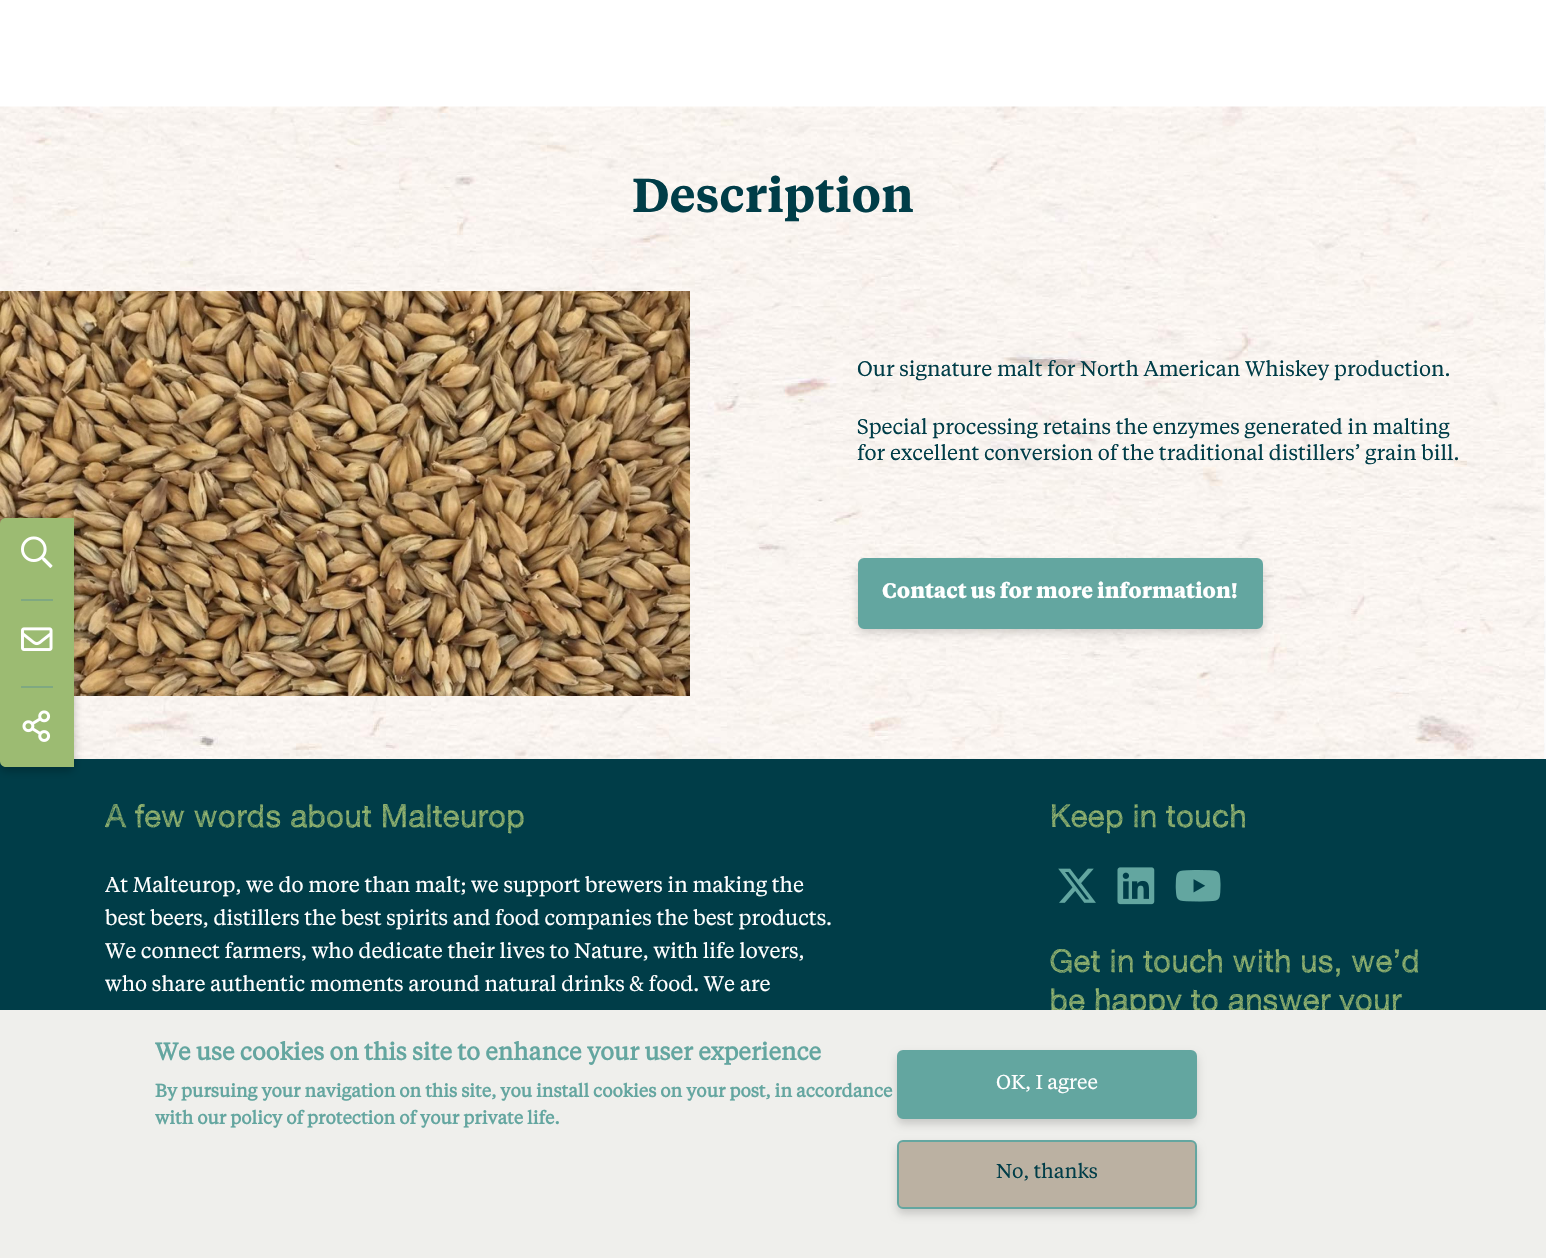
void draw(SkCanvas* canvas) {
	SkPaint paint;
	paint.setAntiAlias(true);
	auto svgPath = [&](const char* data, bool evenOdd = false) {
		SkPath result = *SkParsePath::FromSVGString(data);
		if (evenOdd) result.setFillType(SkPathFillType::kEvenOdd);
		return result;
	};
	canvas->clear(0xffffffff);
	canvas->drawImageRect(SkImages::DeferredFromEncodedData(SkData::MakeFromFileName("img1.png")), SkRect::MakeXYWH(0, 106, 1546, 653), SkSamplingOptions());
	SkFont f1(fontMgr->matchFamilyStyle("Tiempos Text", SkFontStyle(600, SkFontStyle::kNormal_Width, SkFontStyle::kUpright_Slant)), 47.25);
	f1.setSubpixel(true);
	paint.setColor(0xff003d48);
	canvas->drawString("Description", 632, 212, f1, paint);
	canvas->drawImageRect(SkImages::DeferredFromEncodedData(SkData::MakeFromFileName("img2.png")), SkRect::MakeXYWH(0, 291, 690, 405), SkSamplingOptions());
	SkFont f2(fontMgr->matchFamilyStyle("Tiempos Text", SkFontStyle::Normal()), 21);
	f2.setSubpixel(true);
	canvas->drawString("Our signature malt for North American Whiskey production.", 857, 376, f2, paint);
	canvas->drawString("Special processing retains the enzymes generated in malting", 857, 434, f2, paint);
	canvas->drawString("for excellent conversion of the traditional distillers’ grain bill.", 857, 460, f2, paint);
	paint.setColor(0x29000000);
	paint.setMaskFilter(SkMaskFilter::MakeBlur(kNormal_SkBlurStyle, 4.5));
	canvas->drawRoundRect(SkRect::MakeXYWH(858, 563, 405, 70), 6, 6, paint);
	paint.setMaskFilter(nullptr);
	paint.setColor(0xff63a6a0);
	canvas->drawRoundRect(SkRect::MakeXYWH(859, 559, 403, 69), 5, 5, paint);
	paint.setStroke(true);
	paint.setStrokeWidth(2);
	canvas->drawRoundRect(SkRect::MakeXYWH(859, 559, 403, 69), 5, 5, paint);
	SkFont f3(fontMgr->matchFamilyStyle("Tiempos Text", SkFontStyle::Bold()), 21);
	f3.setSubpixel(true);
	paint.setStroke(false);
	paint.setColor(0xffffffff);
	canvas->drawString("Contact us for more information!", 882, 598, f3, paint);
	paint.setColor(0xff003d48);
	canvas->drawRect(SkRect::MakeXYWH(0, 759, 1546, 251), paint);
	paint.setColor(0x40000000);
	paint.setMaskFilter(SkMaskFilter::MakeBlur(kNormal_SkBlurStyle, 4.5));
	canvas->drawRoundRect(SkRect::MakeXYWH(0, 522, 74, 249), 6, 6, paint);
	paint.setMaskFilter(nullptr);
	paint.setColor(0xff9cbb72);
	canvas->drawPath(svgPath("M6 518H74V767H6C2.5 767 0 764.5 0 761V524C0 520.5 2.5 518 6 518Z"), paint);
	paint.setColor(0xff7fa881);
	canvas->drawRect(SkRect::MakeXYWH(21, 599, 32, 2), paint);
	canvas->drawImageRect(SkImages::DeferredFromEncodedData(SkData::MakeFromFileName("img3.png")), SkRect::MakeXYWH(21, 536, 32, 32), SkSamplingOptions());
	canvas->drawRect(SkRect::MakeXYWH(21, 686, 32, 2), paint);
	canvas->drawImageRect(SkImages::DeferredFromEncodedData(SkData::MakeFromFileName("img4.png")), SkRect::MakeXYWH(21, 627, 32, 24), SkSamplingOptions());
	canvas->drawImageRect(SkImages::DeferredFromEncodedData(SkData::MakeFromFileName("img5.png")), SkRect::MakeXYWH(22, 710, 29, 32), SkSamplingOptions());
	SkFont f4(fontMgr->matchFamilyStyle("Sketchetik", SkFontStyle::Normal()), 31.5);
	f4.setSubpixel(true);
	paint.setColor(0xff9cbb72);
	canvas->drawString("A few words about Malteurop", 105, 827, f4, paint);
	paint.setColor(0xffffffff);
	canvas->drawString("At Malteurop, we do more than malt; we support brewers in making the", 105, 892, f2, paint);
	canvas->drawString("best beers, distillers the best spirits and food companies the best products.", 105, 925, f2, paint);
	canvas->drawString("We connect farmers, who dedicate their lives to Nature, with life lovers,", 105, 958, f2, paint);
	canvas->drawString("who share authentic moments around natural drinks & food. We are", 105, 991, f2, paint);
	paint.setColor(0xff9cbb72);
	canvas->drawString("Keep in touch", 1049, 827, f4, paint);
	canvas->drawImageRect(SkImages::DeferredFromEncodedData(SkData::MakeFromFileName("img6.png")), SkRect::MakeXYWH(1058, 868, 38, 35), SkSamplingOptions());
	canvas->drawImageRect(SkImages::DeferredFromEncodedData(SkData::MakeFromFileName("img7.png")), SkRect::MakeXYWH(1117, 867, 38, 38), SkSamplingOptions());
	canvas->drawImageRect(SkImages::DeferredFromEncodedData(SkData::MakeFromFileName("img8.png")), SkRect::MakeXYWH(1175, 870, 46, 32), SkSamplingOptions());
	canvas->drawString("Get in touch with us, we’d", 1049, 972, f4, paint);
	canvas->drawString("be happy to answer your", 1049, 1011, f4, paint);
	paint.setColor(0xffefefec);
	canvas->drawRect(SkRect::MakeXYWH(0, 1010, 1546, 248), paint);
	SkFont f5(fontMgr->matchFamilyStyle("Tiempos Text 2", SkFontStyle::Bold()), 24);
	f5.setSubpixel(true);
	paint.setColor(0xff64a6a0);
	canvas->drawString("We use cookies on this site to enhance your user experience", 155, 1060, f5, paint);
	SkFont f6(fontMgr->matchFamilyStyle("Tiempos Text 2", SkFontStyle::Bold()), 18);
	f6.setSubpixel(true);
	canvas->drawString("By pursuing your navigation on this site, you install cookies on your post, in accordance", 155, 1097, f6, paint);
	canvas->drawString("with our policy of protection of your private life.", 155, 1124, f6, paint);
	paint.setColor(0x29000000);
	paint.setMaskFilter(SkMaskFilter::MakeBlur(kNormal_SkBlurStyle, 4.5));
	canvas->drawRoundRect(SkRect::MakeXYWH(897, 1055, 300, 69), 6, 6, paint);
	paint.setMaskFilter(nullptr);
	paint.setColor(0xff63a6a0);
	canvas->drawRoundRect(SkRect::MakeXYWH(898, 1051, 298, 67), 5, 5, paint);
	paint.setStroke(true);
	canvas->drawRoundRect(SkRect::MakeXYWH(898, 1051, 298, 67), 5, 5, paint);
	SkFont f7(fontMgr->matchFamilyStyle("Tiempos Text", SkFontStyle::Normal()), 20);
	f7.setSubpixel(true);
	paint.setStroke(false);
	paint.setColor(0xffffffff);
	canvas->drawString("OK, I agree", 996, 1089, f7, paint);
	paint.setColor(0x29000000);
	paint.setMaskFilter(SkMaskFilter::MakeBlur(kNormal_SkBlurStyle, 4.5));
	canvas->drawRoundRect(SkRect::MakeXYWH(897, 1145, 300, 69), 6, 6, paint);
	paint.setMaskFilter(nullptr);
	paint.setColor(0xffbbb1a2);
	canvas->drawRoundRect(SkRect::MakeXYWH(898, 1141, 298, 67), 5, 5, paint);
	paint.setStroke(true);
	paint.setColor(0xff63a6a0);
	canvas->drawRoundRect(SkRect::MakeXYWH(898, 1141, 298, 67), 5, 5, paint);
	paint.setStroke(false);
	paint.setColor(0xff003d48);
	canvas->drawString("No, thanks", 996, 1178, f7, paint);
}
